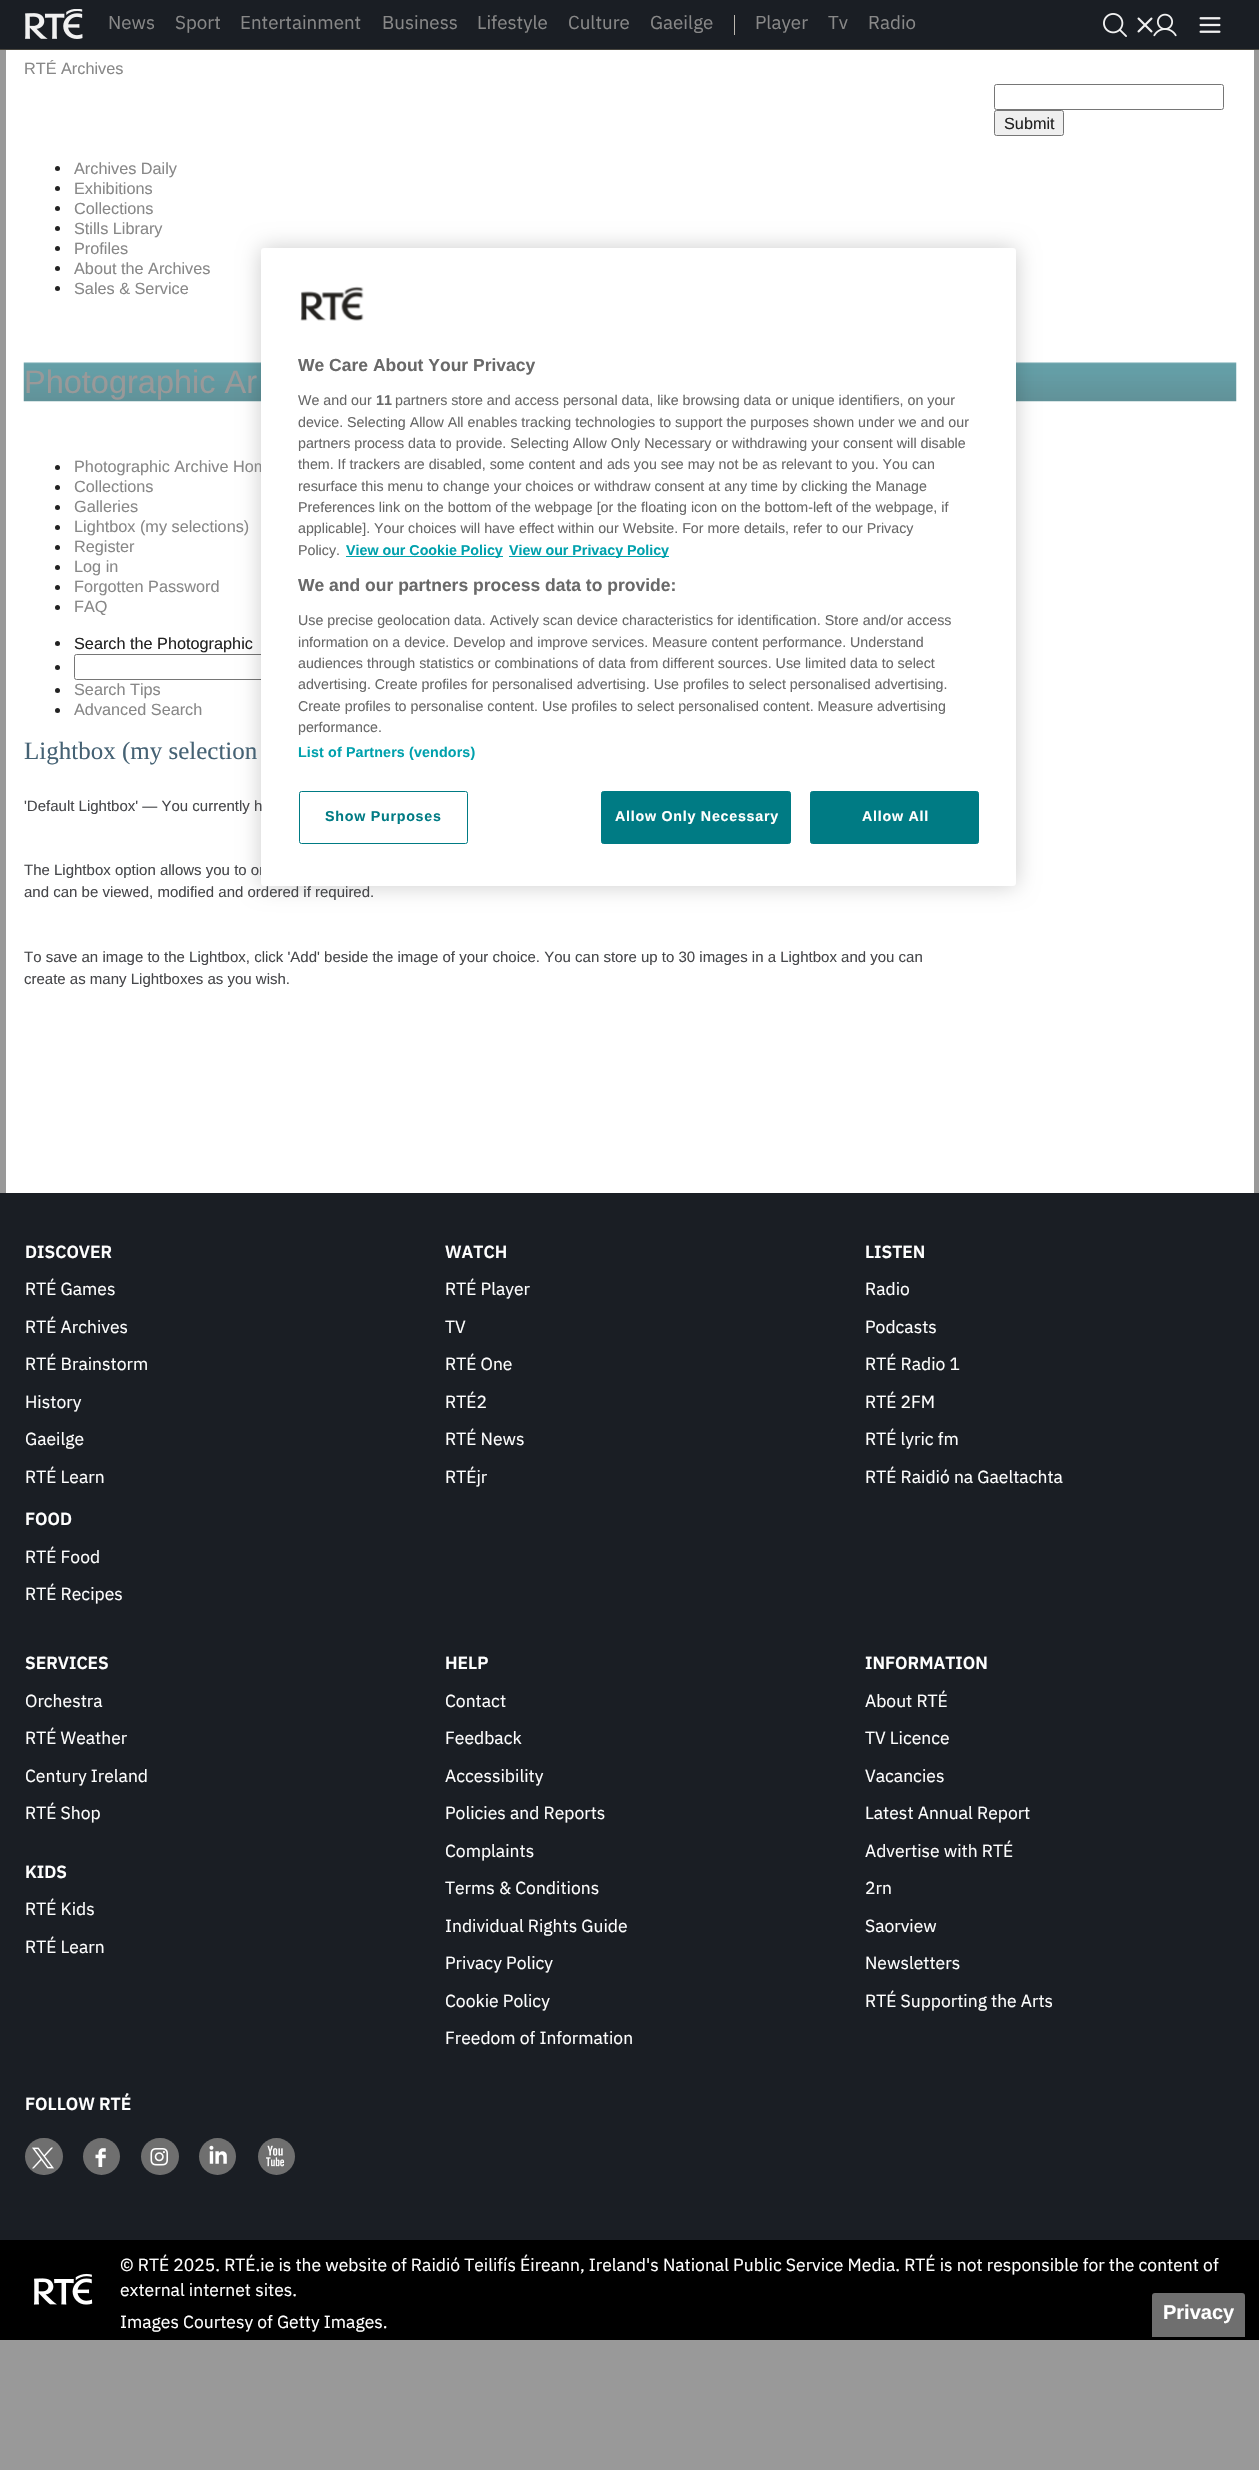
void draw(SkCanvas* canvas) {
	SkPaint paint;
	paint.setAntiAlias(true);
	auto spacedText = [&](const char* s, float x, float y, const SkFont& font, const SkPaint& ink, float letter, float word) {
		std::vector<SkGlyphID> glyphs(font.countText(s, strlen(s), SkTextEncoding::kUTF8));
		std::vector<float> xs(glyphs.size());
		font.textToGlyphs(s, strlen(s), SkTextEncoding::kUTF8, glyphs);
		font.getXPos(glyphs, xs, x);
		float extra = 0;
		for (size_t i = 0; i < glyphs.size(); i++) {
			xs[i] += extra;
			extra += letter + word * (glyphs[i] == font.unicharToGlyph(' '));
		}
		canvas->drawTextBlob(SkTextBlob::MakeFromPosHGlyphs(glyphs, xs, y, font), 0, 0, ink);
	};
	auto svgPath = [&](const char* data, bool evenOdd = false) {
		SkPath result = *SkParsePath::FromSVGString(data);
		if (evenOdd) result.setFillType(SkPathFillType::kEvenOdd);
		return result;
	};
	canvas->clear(0xff999999);
	paint.setColor(0xff1a1e24);
	canvas->drawRect(SkRect::MakeXYWH(0, 0, 1259, 49), paint);
	paint.setColor(0xff47453e);
	canvas->drawRect(SkRect::MakeXYWH(0, 49, 1259, 1), paint);
	canvas->drawImageRect(SkImages::DeferredFromEncodedData(SkData::MakeFromFileName("img1.png")), SkRect::MakeXYWH(25, 9, 58, 30), SkSamplingOptions());
	SkFont f1(fontMgr->matchFamilyStyle("IBM Plex Sans", SkFontStyle::Normal()), 18.75);
	f1.setSubpixel(true);
	paint.setColor(0xff888888);
	canvas->drawString("News", 108, 29, f1, paint);
	canvas->drawString("Sport", 175, 29, f1, paint);
	canvas->drawString("Entertainment", 240, 29, f1, paint);
	canvas->drawString("Business", 382, 29, f1, paint);
	canvas->drawString("Lifestyle", 477, 29, f1, paint);
	canvas->drawString("Culture", 568, 29, f1, paint);
	canvas->drawString("Gaeilge", 650, 29, f1, paint);
	paint.setColor(0xffbcb8b0);
	canvas->drawRect(SkRect::MakeXYWH(734, 15, 1, 20), paint);
	paint.setColor(0xff888888);
	canvas->drawString("Player", 755, 29, f1, paint);
	canvas->drawString("Tv", 828, 29, f1, paint);
	canvas->drawString("Radio", 868, 29, f1, paint);
	canvas->drawImageRect(SkImages::DeferredFromEncodedData(SkData::MakeFromFileName("img2.png")), SkRect::MakeXYWH(1103, 13, 24, 24), SkSamplingOptions());
	canvas->drawImageRect(SkImages::DeferredFromEncodedData(SkData::MakeFromFileName("img3.png")), SkRect::MakeXYWH(1137, 17, 16, 16), SkSamplingOptions());
	canvas->drawImageRect(SkImages::DeferredFromEncodedData(SkData::MakeFromFileName("img4.png")), SkRect::MakeXYWH(1153, 13, 24, 24), SkSamplingOptions());
	canvas->drawImageRect(SkImages::DeferredFromEncodedData(SkData::MakeFromFileName("img5.png")), SkRect::MakeXYWH(1199, 17, 22, 16), SkSamplingOptions());
	paint.setColor(0xffffffff);
	canvas->drawRect(SkRect::MakeXYWH(6, 50, 1248, 1143), paint);
	SkFont f2(fontMgr->matchFamilyStyle("Liberation Sans", SkFontStyle::Normal()), 16.25);
	f2.setSubpixel(true);
	paint.setColor(0xff888888);
	canvas->drawString("RTÉ Archives", 24, 74, f2, paint);
	paint.setStroke(true);
	paint.setStrokeWidth(1);
	paint.setColor(0xff767676);
	canvas->drawRoundRect(SkRect::MakeXYWH(994.5, 84.5, 229, 25), 2, 2, paint);
	paint.setStroke(false);
	paint.setColor(0xffefefef);
	canvas->drawRoundRect(SkRect::MakeXYWH(994.5, 110.5, 69, 25), 2, 2, paint);
	paint.setStroke(true);
	paint.setColor(0xff767676);
	canvas->drawRoundRect(SkRect::MakeXYWH(994.5, 110.5, 69, 25), 2, 2, paint);
	paint.setStroke(false);
	paint.setColor(0xff222222);
	canvas->drawString("Submit", 1004, 129, f2, paint);
	canvas->drawCircle(57.5, 168.5, 2.5, paint);
	paint.setColor(0xff888888);
	canvas->drawString("Archives Daily", 74, 174, f2, paint);
	paint.setColor(0xff222222);
	canvas->drawCircle(57.5, 188.5, 2.5, paint);
	paint.setColor(0xff888888);
	canvas->drawString("Exhibitions", 74, 194, f2, paint);
	paint.setColor(0xff222222);
	canvas->drawCircle(57.5, 208.5, 2.5, paint);
	paint.setColor(0xff888888);
	canvas->drawString("Collections", 74, 214, f2, paint);
	paint.setColor(0xff222222);
	canvas->drawCircle(57.5, 228.5, 2.5, paint);
	paint.setColor(0xff888888);
	canvas->drawString("Stills Library", 74, 234, f2, paint);
	paint.setColor(0xff222222);
	canvas->drawCircle(57.5, 248.5, 2.5, paint);
	paint.setColor(0xff888888);
	canvas->drawString("Profiles", 74, 254, f2, paint);
	paint.setColor(0xff222222);
	canvas->drawCircle(57.5, 268.5, 2.5, paint);
	paint.setColor(0xff888888);
	canvas->drawString("About the Archives", 74, 274, f2, paint);
	paint.setColor(0xff222222);
	canvas->drawCircle(57.5, 288.5, 2.5, paint);
	paint.setColor(0xff888888);
	canvas->drawString("Sales & Service", 74, 294, f2, paint);
	canvas->drawImageRect(SkImages::DeferredFromEncodedData(SkData::MakeFromFileName("img7.png")), SkRect::MakeXYWH(23, 362, 1214, 40), SkSamplingOptions());
	paint.setStroke(true);
	paint.setColor(0xff767676);
	canvas->drawRoundRect(SkRect::MakeXYWH(74.5, 654.5, 229, 25), 2, 2, paint);
	paint.setStroke(false);
	paint.setColor(0x33000000);
	paint.setMaskFilter(SkMaskFilter::MakeBlur(kNormal_SkBlurStyle, 11));
	canvas->drawRoundRect(SkRect::MakeXYWH(261, 248, 755, 638), 3, 3, paint);
	paint.setMaskFilter(nullptr);
	paint.setColor(0xff888888);
	canvas->drawString("Photographic Archive Hom", 74, 472, f2, paint);
	SkFont f3(fontMgr->matchFamilyStyle("Liberation Sans", SkFontStyle::Normal()), 15);
	f3.setSubpixel(true);
	paint.setColor(0xff47484b);
	canvas->drawString("The Lightbox option allows you to or", 24, 875, f3, paint);
	paint.setColor(0xffffffff);
	canvas->drawRoundRect(SkRect::MakeXYWH(261, 248, 755, 638), 3, 3, paint);
	canvas->drawImageRect(SkImages::DeferredFromEncodedData(SkData::MakeFromFileName("img6.png")), SkRect::MakeXYWH(300, 286, 64, 35), SkSamplingOptions());
	SkFont f4(fontMgr->matchFamilyStyle("Liberation Sans", SkFontStyle::Bold()), 17.5);
	f4.setSubpixel(true);
	paint.setColor(0xff696969);
	canvas->drawString("We Care About Your Privacy", 298, 371, f4, paint);
	SkFont f5(fontMgr->matchFamilyStyle("Liberation Sans", SkFontStyle::Normal()), 14.25);
	f5.setSubpixel(true);
	canvas->drawString("We and our", 298, 405, f5, paint);
	SkFont f6(fontMgr->matchFamilyStyle("Liberation Sans", SkFontStyle::Bold()), 14.25);
	f6.setSubpixel(true);
	canvas->drawString("11", 376, 405, f6, paint);
	canvas->drawString("partners store and access personal data, like browsing data or unique identifiers, on your", 395, 405, f5, paint);
	canvas->drawString("device. Selecting Allow All enables tracking technologies to support the purposes shown under we and our", 298, 427, f5, paint);
	canvas->drawString("partners process data to provide. Selecting Allow Only Necessary or withdrawing your consent will disable", 298, 448, f5, paint);
	canvas->drawString("them. If trackers are disabled, some content and ads you see may not be as relevant to you. You can", 298, 469, f5, paint);
	canvas->drawString("resurface this menu to change your choices or withdraw consent at any time by clicking the Manage", 298, 491, f5, paint);
	canvas->drawString("Preferences link on the bottom of the webpage [or the floating icon on the bottom-left of the webpage, if", 298, 512, f5, paint);
	canvas->drawString("applicable]. Your choices will have effect within our Website. For more details, refer to our Privacy", 298, 533, f5, paint);
	canvas->drawString("Policy.", 298, 555, f5, paint);
	paint.setColor(0xff00a1ad);
	canvas->drawRect(SkRect::MakeXYWH(346, 556, 157, 1), paint);
	canvas->drawString("View our Cookie Policy", 346, 555, f6, paint);
	canvas->drawRect(SkRect::MakeXYWH(509, 556, 160, 1), paint);
	canvas->drawString("View our Privacy Policy", 509, 555, f6, paint);
	paint.setColor(0xff696969);
	canvas->drawString("We and our partners process data to provide:", 298, 591, f4, paint);
	canvas->drawString("Use precise geolocation data. Actively scan device characteristics for identification. Store and/or access", 298, 625, f5, paint);
	canvas->drawString("information on a device. Develop and improve services. Measure content performance. Understand", 298, 647, f5, paint);
	canvas->drawString("audiences through statistics or combinations of data from different sources. Use limited data to select", 298, 668, f5, paint);
	canvas->drawString("advertising. Create profiles for personalised advertising. Use profiles to select personalised advertising.", 298, 689, f5, paint);
	canvas->drawString("Create profiles to personalise content. Use profiles to select personalised content. Measure advertising", 298, 711, f5, paint);
	canvas->drawString("performance.", 298, 732, f5, paint);
	paint.setColor(0xff00a1ad);
	spacedText("List of Partners (vendors)", 298, 757, f6, paint, 0.15, 0);
	paint.setStroke(true);
	paint.setColor(0xff007b84);
	canvas->drawRoundRect(SkRect::MakeXYWH(299.5, 791.5, 168, 52), 2, 2, paint);
	paint.setStroke(false);
	spacedText("Show Purposes", 325, 821, f6, paint, 0.75, 0);
	canvas->drawRoundRect(SkRect::MakeXYWH(601.5, 791.5, 189, 52), 2, 2, paint);
	paint.setStroke(true);
	canvas->drawRoundRect(SkRect::MakeXYWH(601.5, 791.5, 189, 52), 2, 2, paint);
	paint.setStroke(false);
	paint.setColor(0xffffffff);
	spacedText("Allow Only Necessary", 615, 821, f6, paint, 0.75, 0);
	paint.setColor(0xff007b84);
	canvas->drawRoundRect(SkRect::MakeXYWH(810.5, 791.5, 168, 52), 2, 2, paint);
	paint.setStroke(true);
	canvas->drawRoundRect(SkRect::MakeXYWH(810.5, 791.5, 168, 52), 2, 2, paint);
	paint.setStroke(false);
	paint.setColor(0xffffffff);
	spacedText("Allow All", 862, 821, f6, paint, 0.75, 0);
	SkFont f7(fontMgr->matchFamilyStyle("Liberation Sans", SkFontStyle::Normal()), 32.5);
	f7.setSubpixel(true);
	paint.setColor(0xff999999);
	canvas->drawString("Photographic Ar", 24, 393, f7, paint);
	paint.setColor(0xff222222);
	canvas->drawCircle(57.5, 467.5, 2.5, paint);
	canvas->drawCircle(57.5, 487.5, 2.5, paint);
	paint.setColor(0xff888888);
	canvas->drawString("Collections", 74, 492, f2, paint);
	paint.setColor(0xff222222);
	canvas->drawCircle(57.5, 507.5, 2.5, paint);
	paint.setColor(0xff888888);
	canvas->drawString("Galleries", 74, 512, f2, paint);
	paint.setColor(0xff222222);
	canvas->drawCircle(57.5, 527.5, 2.5, paint);
	paint.setColor(0xff888888);
	canvas->drawString("Lightbox (my selections)", 74, 532, f2, paint);
	paint.setColor(0xff222222);
	canvas->drawCircle(57.5, 547.5, 2.5, paint);
	paint.setColor(0xff888888);
	canvas->drawString("Register", 74, 552, f2, paint);
	paint.setColor(0xff222222);
	canvas->drawCircle(57.5, 567.5, 2.5, paint);
	paint.setColor(0xff888888);
	canvas->drawString("Log in", 74, 572, f2, paint);
	paint.setColor(0xff222222);
	canvas->drawCircle(57.5, 587.5, 2.5, paint);
	paint.setColor(0xff888888);
	canvas->drawString("Forgotten Password", 74, 592, f2, paint);
	paint.setColor(0xff222222);
	canvas->drawCircle(57.5, 607.5, 2.5, paint);
	paint.setColor(0xff888888);
	canvas->drawString("FAQ", 74, 612, f2, paint);
	paint.setColor(0xff222222);
	canvas->drawCircle(57.5, 643.5, 2.5, paint);
	canvas->drawString("Search the Photographic", 74, 649, f2, paint);
	canvas->drawCircle(57.5, 667.5, 2.5, paint);
	canvas->drawCircle(57.5, 690.5, 2.5, paint);
	paint.setColor(0xff888888);
	canvas->drawString("Search Tips", 74, 695, f2, paint);
	paint.setColor(0xff222222);
	canvas->drawCircle(57.5, 710.5, 2.5, paint);
	paint.setColor(0xff888888);
	canvas->drawString("Advanced Search", 74, 715, f2, paint);
	SkFont f8(fontMgr->matchFamilyStyle("Liberation Serif", SkFontStyle::Normal()), 25);
	f8.setSubpixel(true);
	paint.setColor(0xff456274);
	canvas->drawString("Lightbox (my selection", 24, 759, f8, paint);
	paint.setColor(0xff47484b);
	canvas->drawString("'Default Lightbox' — You currently h", 24, 811, f3, paint);
	canvas->drawString("and can be viewed, modified and ordered if required.", 24, 897, f3, paint);
	canvas->drawString("To save an image to the Lightbox, click 'Add' beside the image of your choice. You can store up to 30 images in a Lightbox and you can", 24, 962, f3, paint);
	canvas->drawString("create as many Lightboxes as you wish.", 24, 984, f3, paint);
	paint.setColor(0xff1a1e24);
	canvas->drawRect(SkRect::MakeXYWH(0, 1193, 1259, 1047), paint);
	SkFont f9(fontMgr->matchFamilyStyle("IBM Plex Sans", SkFontStyle(600, SkFontStyle::kNormal_Width, SkFontStyle::kUpright_Slant)), 17.5);
	f9.setSubpixel(true);
	paint.setColor(0xffffffff);
	canvas->drawString("DISCOVER", 25, 1258, f9, paint);
	SkFont f10(fontMgr->matchFamilyStyle("IBM Plex Sans", SkFontStyle::Normal()), 17.5);
	f10.setSubpixel(true);
	canvas->drawString("RTÉ Games", 25, 1295, f10, paint);
	canvas->drawString("RTÉ Archives", 25, 1333, f10, paint);
	canvas->drawString("RTÉ Brainstorm", 25, 1370, f10, paint);
	canvas->drawString("History", 25, 1408, f10, paint);
	canvas->drawString("Gaeilge", 25, 1445, f10, paint);
	canvas->drawString("RTÉ Learn", 25, 1483, f10, paint);
	canvas->drawString("FOOD", 25, 1525, f9, paint);
	canvas->drawString("RTÉ Food", 25, 1563, f10, paint);
	canvas->drawString("RTÉ Recipes", 25, 1600, f10, paint);
	canvas->drawString("WATCH", 445, 1258, f9, paint);
	canvas->drawString("RTÉ Player", 445, 1295, f10, paint);
	canvas->drawString("TV", 445, 1333, f10, paint);
	canvas->drawString("RTÉ One", 445, 1370, f10, paint);
	canvas->drawString("RTÉ2", 445, 1408, f10, paint);
	canvas->drawString("RTÉ News", 445, 1445, f10, paint);
	canvas->drawString("RTÉjr", 445, 1483, f10, paint);
	canvas->drawString("LISTEN", 865, 1258, f9, paint);
	canvas->drawString("Radio", 865, 1295, f10, paint);
	canvas->drawString("Podcasts", 865, 1333, f10, paint);
	canvas->drawString("RTÉ Radio 1", 865, 1370, f10, paint);
	canvas->drawString("RTÉ 2FM", 865, 1408, f10, paint);
	canvas->drawString("RTÉ lyric fm", 865, 1445, f10, paint);
	canvas->drawString("RTÉ Raidió na Gaeltachta", 865, 1483, f10, paint);
	canvas->drawString("SERVICES", 25, 1669, f9, paint);
	canvas->drawString("Orchestra", 25, 1707, f10, paint);
	canvas->drawString("RTÉ Weather", 25, 1744, f10, paint);
	canvas->drawString("Century Ireland", 25, 1782, f10, paint);
	canvas->drawString("RTÉ Shop", 25, 1819, f10, paint);
	canvas->drawString("KIDS", 25, 1878, f9, paint);
	canvas->drawString("RTÉ Kids", 25, 1915, f10, paint);
	canvas->drawString("RTÉ Learn", 25, 1953, f10, paint);
	canvas->drawString("HELP", 445, 1669, f9, paint);
	canvas->drawString("Contact", 445, 1707, f10, paint);
	canvas->drawString("Feedback", 445, 1744, f10, paint);
	canvas->drawString("Accessibility", 445, 1782, f10, paint);
	canvas->drawString("Policies and Reports", 445, 1819, f10, paint);
	canvas->drawString("Complaints", 445, 1857, f10, paint);
	canvas->drawString("Terms & Conditions", 445, 1894, f10, paint);
	canvas->drawString("Individual Rights Guide", 445, 1932, f10, paint);
	canvas->drawString("Privacy Policy", 445, 1969, f10, paint);
	canvas->drawString("Cookie Policy", 445, 2007, f10, paint);
	canvas->drawString("Freedom of Information", 445, 2044, f10, paint);
	canvas->drawString("INFORMATION", 865, 1669, f9, paint);
	canvas->drawString("About RTÉ", 865, 1707, f10, paint);
	canvas->drawString("TV Licence", 865, 1744, f10, paint);
	canvas->drawString("Vacancies", 865, 1782, f10, paint);
	canvas->drawString("Latest Annual Report", 865, 1819, f10, paint);
	canvas->drawString("Advertise with RTÉ", 865, 1857, f10, paint);
	canvas->drawString("2rn", 865, 1894, f10, paint);
	canvas->drawString("Saorview", 865, 1932, f10, paint);
	canvas->drawString("Newsletters", 865, 1969, f10, paint);
	canvas->drawString("RTÉ Supporting the Arts", 865, 2007, f10, paint);
	canvas->drawString("FOLLOW RTÉ", 25, 2110, f9, paint);
	paint.setColor(0xff6f6f6f);
	canvas->drawRoundRect(SkRect::MakeXYWH(25, 2138, 38, 37), 18.5, 18.5, paint);
	canvas->drawImageRect(SkImages::DeferredFromEncodedData(SkData::MakeFromFileName("img8.png")), SkRect::MakeXYWH(32, 2147, 22, 22), SkSamplingOptions());
	canvas->drawCircle(101.5, 2156.5, 18.5, paint);
	canvas->drawImageRect(SkImages::DeferredFromEncodedData(SkData::MakeFromFileName("img9.png")), SkRect::MakeXYWH(95, 2148, 11, 19), SkSamplingOptions());
	canvas->drawRoundRect(SkRect::MakeXYWH(141, 2138, 38, 37), 18.5, 18.5, paint);
	canvas->drawImageRect(SkImages::DeferredFromEncodedData(SkData::MakeFromFileName("img10.png")), SkRect::MakeXYWH(150, 2148, 18, 18), SkSamplingOptions());
	canvas->drawCircle(217.5, 2156.5, 18.5, paint);
	canvas->drawImageRect(SkImages::DeferredFromEncodedData(SkData::MakeFromFileName("img11.png")), SkRect::MakeXYWH(209, 2145, 18, 19), SkSamplingOptions());
	canvas->drawCircle(276.5, 2156.5, 18.5, paint);
	canvas->drawImageRect(SkImages::DeferredFromEncodedData(SkData::MakeFromFileName("img12.png")), SkRect::MakeXYWH(266, 2145, 19, 22), SkSamplingOptions());
	paint.setColor(0xff000000);
	canvas->drawRect(SkRect::MakeXYWH(0, 2240, 1259, 100), paint);
	canvas->drawImageRect(SkImages::DeferredFromEncodedData(SkData::MakeFromFileName("img13.png")), SkRect::MakeXYWH(33, 2273, 60, 32), SkSamplingOptions());
	paint.setColor(0xffffffff);
	canvas->drawString("© RTÉ 2025. RTÉ.ie is the website of Raidió Teilifís Éireann, Ireland's National Public Service Media. RTÉ is not responsible for the content of", 120, 2271, f10, paint);
	canvas->drawString("external internet sites.", 120, 2296, f10, paint);
	canvas->drawString("Images Courtesy of Getty Images.", 120, 2328, f10, paint);
	paint.setColor(0xff6f6f6f);
	canvas->drawPath(svgPath("M1155 2291.5H1242C1244.5 2291.5 1246.5 2293.5 1246.5 2296V2338.5H1150.5V2296C1150.5 2293.5 1152.5 2291.5 1155 2291.5Z"), paint);
	paint.setStroke(true);
	paint.setStrokeWidth(3);
	paint.setColor(0xff000000);
	canvas->drawPath(svgPath("M1155 2291.5H1242C1244.5 2291.5 1246.5 2293.5 1246.5 2296V2338.5H1150.5V2296C1150.5 2293.5 1152.5 2291.5 1155 2291.5Z"), paint);
	SkFont f11(fontMgr->matchFamilyStyle("Liberation Sans", SkFontStyle::Bold()), 20);
	f11.setSubpixel(true);
	paint.setStroke(false);
	paint.setColor(0xffffffff);
	canvas->drawString("Privacy", 1163, 2319, f11, paint);
}
